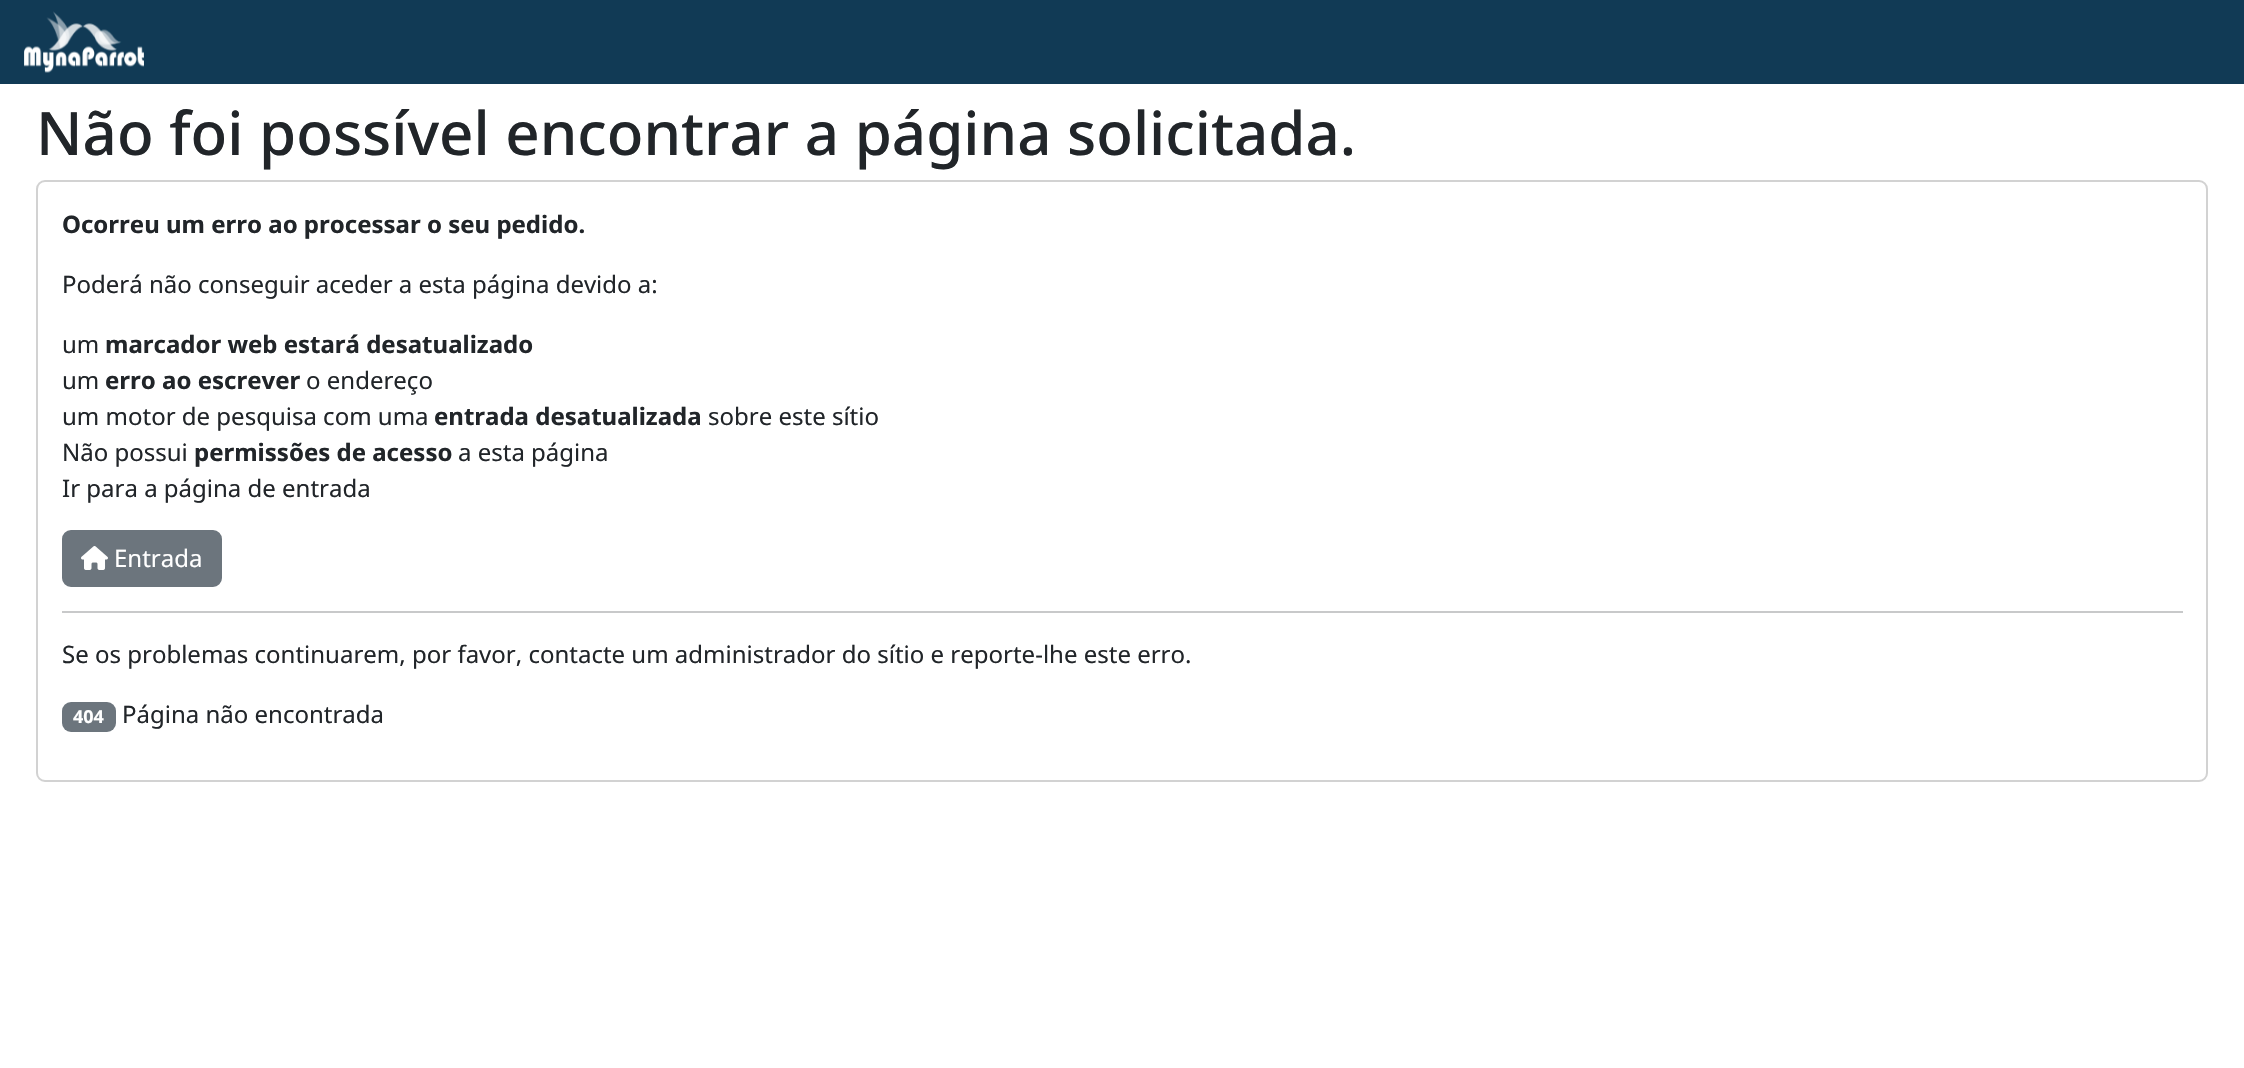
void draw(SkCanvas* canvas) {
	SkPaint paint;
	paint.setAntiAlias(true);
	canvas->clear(0xffffffff);
	paint.setColor(0xff113a55);
	canvas->drawRect(SkRect::MakeXYWH(0, 0, 2244, 84), paint);
	canvas->drawImageRect(SkImages::DeferredFromEncodedData(SkData::MakeFromFileName("img1.png")), SkRect::MakeXYWH(24, 11, 120, 62), SkSamplingOptions());
	SkFont f1(fontMgr->matchFamilyStyle("Noto Sans", SkFontStyle(500, SkFontStyle::kNormal_Width, SkFontStyle::kUpright_Slant)), 60);
	f1.setSubpixel(true);
	paint.setColor(0xff212529);
	canvas->drawString("Não foi possível encontrar a página solicitada.", 36, 155, f1, paint);
	paint.setStroke(true);
	paint.setStrokeWidth(2);
	paint.setColor(0xffd2d2d2);
	canvas->drawRoundRect(SkRect::MakeXYWH(37, 181, 2170, 600), 8, 8, paint);
	SkFont f2(fontMgr->matchFamilyStyle("Noto Sans", SkFontStyle::Bold()), 24);
	f2.setSubpixel(true);
	paint.setStroke(false);
	paint.setColor(0xff212529);
	canvas->drawString("Ocorreu um erro ao processar o seu pedido.", 62, 233, f2, paint);
	SkFont f3(fontMgr->matchFamilyStyle("Noto Sans", SkFontStyle::Normal()), 24);
	f3.setSubpixel(true);
	canvas->drawString("Poderá não conseguir aceder a esta página devido a:", 62, 293, f3, paint);
	canvas->drawString("um", 62, 353, f3, paint);
	canvas->drawString("marcador web estará desatualizado", 105, 353, f2, paint);
	canvas->drawString("um", 62, 389, f3, paint);
	canvas->drawString("erro ao escrever", 105, 389, f2, paint);
	canvas->drawString("o endereço", 306, 389, f3, paint);
	canvas->drawString("um motor de pesquisa com uma", 62, 425, f3, paint);
	canvas->drawString("entrada desatualizada", 434, 425, f2, paint);
	canvas->drawString("sobre este sítio", 708, 425, f3, paint);
	canvas->drawString("Não possui", 62, 461, f3, paint);
	canvas->drawString("permissões de acesso", 194, 461, f2, paint);
	canvas->drawString("a esta página", 458, 461, f3, paint);
	canvas->drawString("Ir para a página de entrada", 62, 497, f3, paint);
	paint.setColor(0xff6c757d);
	canvas->drawRoundRect(SkRect::MakeXYWH(63, 531, 158, 55), 8, 8, paint);
	paint.setStroke(true);
	canvas->drawRoundRect(SkRect::MakeXYWH(63, 531, 158, 55), 8, 8, paint);
	canvas->drawImageRect(SkImages::DeferredFromEncodedData(SkData::MakeFromFileName("img2.png")), SkRect::MakeXYWH(81, 546, 27, 24), SkSamplingOptions());
	paint.setStroke(false);
	paint.setColor(0xffffffff);
	canvas->drawString("Entrada", 114, 567, f3, paint);
	paint.setColor(0xffc8c9ca);
	canvas->drawRect(SkRect::MakeXYWH(62, 611, 2121, 2), paint);
	paint.setColor(0xff212529);
	canvas->drawString("Se os problemas continuarem, por favor, contacte um administrador do sítio e reporte-lhe este erro.", 62, 663, f3, paint);
	paint.setColor(0xff6c757d);
	canvas->drawRoundRect(SkRect::MakeXYWH(62, 702, 54, 30), 9, 9, paint);
	SkFont f4(fontMgr->matchFamilyStyle("Noto Sans", SkFontStyle::Bold()), 18);
	f4.setSubpixel(true);
	paint.setColor(0xffffffff);
	canvas->drawString("404", 73, 723, f4, paint);
	paint.setColor(0xff212529);
	canvas->drawString("Página não encontrada", 122, 723, f3, paint);
}
